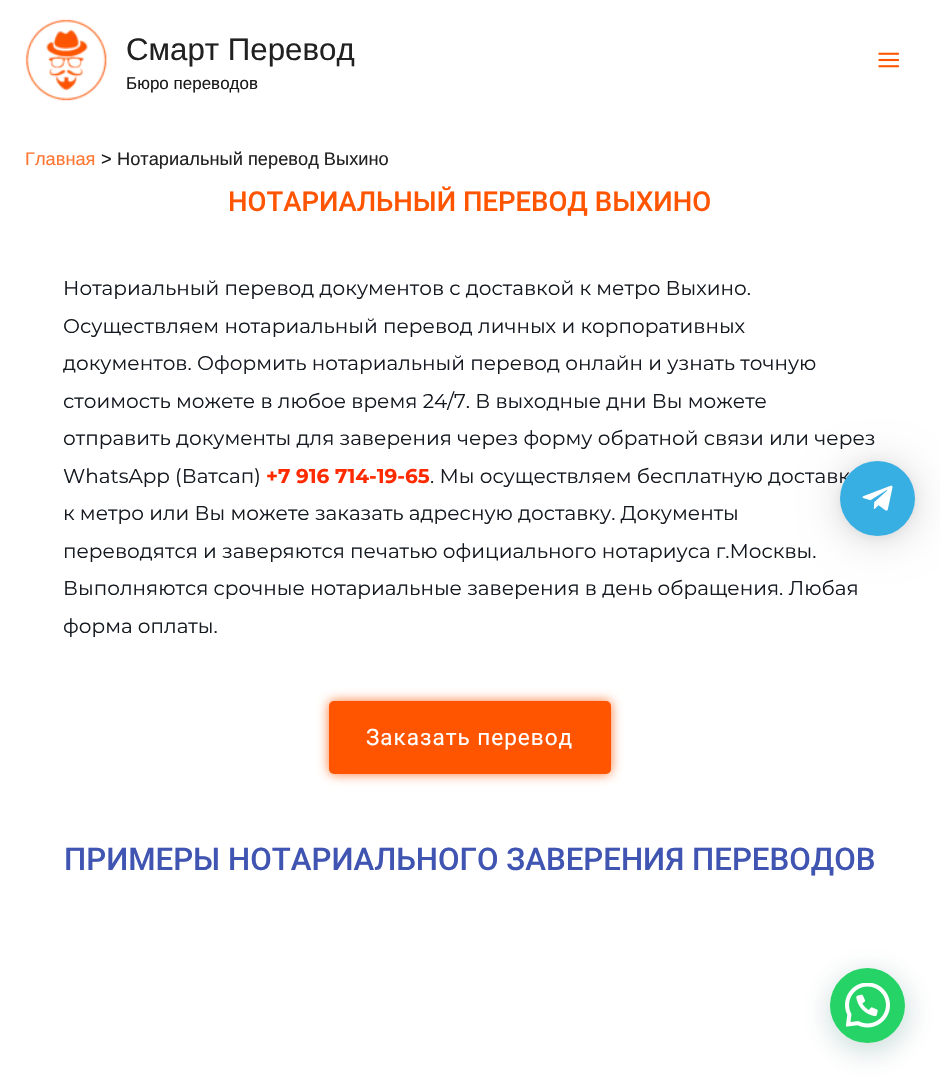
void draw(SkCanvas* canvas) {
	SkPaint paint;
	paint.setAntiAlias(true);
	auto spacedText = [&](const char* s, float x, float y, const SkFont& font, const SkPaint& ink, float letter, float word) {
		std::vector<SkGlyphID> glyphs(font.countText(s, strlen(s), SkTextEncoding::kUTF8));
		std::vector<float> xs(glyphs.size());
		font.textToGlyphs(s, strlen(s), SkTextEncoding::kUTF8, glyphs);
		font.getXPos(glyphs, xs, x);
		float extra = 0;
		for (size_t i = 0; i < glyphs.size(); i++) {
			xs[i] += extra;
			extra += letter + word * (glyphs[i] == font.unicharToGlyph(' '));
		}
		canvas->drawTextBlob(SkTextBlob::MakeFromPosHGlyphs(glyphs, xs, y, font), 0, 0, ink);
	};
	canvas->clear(0xffffffff);
	canvas->drawImageRect(SkImages::DeferredFromEncodedData(SkData::MakeFromFileName("img1.png")), SkRect::MakeXYWH(25, 19, 83, 82), SkSamplingOptions());
	SkFont f1(fontMgr->matchFamilyStyle("Liberation Sans", SkFontStyle::Normal()), 31.25);
	f1.setSubpixel(true);
	paint.setColor(0xff212121);
	canvas->drawString("Смарт Перевод", 126, 60, f1, paint);
	SkFont f2(fontMgr->matchFamilyStyle("Liberation Sans", SkFontStyle::Normal()), 17);
	f2.setSubpixel(true);
	paint.setColor(0xff1b1a1a);
	canvas->drawString("Бюро переводов", 126, 89, f2, paint);
	canvas->drawImageRect(SkImages::DeferredFromEncodedData(SkData::MakeFromFileName("img2.png")), SkRect::MakeXYWH(878, 52, 22, 16), SkSamplingOptions());
	SkFont f3(fontMgr->matchFamilyStyle("Liberation Sans", SkFontStyle::Normal()), 18.25);
	f3.setSubpixel(true);
	paint.setColor(0xffff7633);
	canvas->drawString("Главная", 25, 165, f3, paint);
	paint.setColor(0xff1b1a1a);
	canvas->drawString(">", 101, 165, f3, paint);
	paint.setColor(0xff212121);
	canvas->drawString("Нотариальный перевод Выхино", 117, 165, f3, paint);
	SkFont f4(fontMgr->matchFamilyStyle("Roboto", SkFontStyle(500, SkFontStyle::kNormal_Width, SkFontStyle::kUpright_Slant)), 27.5);
	f4.setSubpixel(true);
	paint.setColor(0xffff5400);
	canvas->drawString("НОТАРИАЛЬНЫЙ ПЕРЕВОД ВЫХИНО", 228, 211, f4, paint);
	SkFont f5(fontMgr->matchFamilyStyle("Montserrat", SkFontStyle::Normal()), 20);
	f5.setSubpixel(true);
	paint.setColor(0xff151a21);
	canvas->drawString("Нотариальный перевод документов с доставкой к метро Выхино.", 63, 295, f5, paint);
	canvas->drawString("Осуществляем нотариальный перевод личных и корпоративных", 63, 333, f5, paint);
	canvas->drawString("документов. Оформить нотариальный перевод онлайн и узнать точную", 63, 370, f5, paint);
	canvas->drawString("стоимость можете в любое время 24/7. В выходные дни Вы можете", 63, 408, f5, paint);
	canvas->drawString("отправить документы для заверения через форму обратной связи или через", 63, 445, f5, paint);
	canvas->drawString("WhatsApp (Ватсап)", 63, 483, f5, paint);
	SkFont f6(fontMgr->matchFamilyStyle("Montserrat", SkFontStyle::Bold()), 20);
	f6.setSubpixel(true);
	paint.setColor(0xffff2b00);
	canvas->drawString("+7 916 714-19-65", 266, 483, f6, paint);
	paint.setColor(0xff151a21);
	canvas->drawString(". Мы осуществляем бесплатную доставк", 430, 483, f5, paint);
	canvas->drawString("к метро или Вы можете заказать адресную доставку. Документы", 63, 520, f5, paint);
	canvas->drawString("переводятся и заверяются печатью официального нотариуса г.Москвы.", 63, 558, f5, paint);
	canvas->drawString("Выполняются срочные нотариальные заверения в день обращения. Любая", 63, 595, f5, paint);
	canvas->drawString("форма оплаты.", 63, 633, f5, paint);
	paint.setColor(0xc9ff5400);
	paint.setMaskFilter(SkMaskFilter::MakeBlur(kNormal_SkBlurStyle, 6));
	canvas->drawRoundRect(SkRect::MakeXYWH(329, 701, 282, 73), 5, 5, paint);
	paint.setMaskFilter(nullptr);
	paint.setColor(0xffff5400);
	canvas->drawRoundRect(SkRect::MakeXYWH(329, 701, 282, 73), 5, 5, paint);
	SkFont f7(fontMgr->matchFamilyStyle("Roboto", SkFontStyle::Normal()), 22.5);
	f7.setSubpixel(true);
	paint.setColor(0xffffffff);
	spacedText("Заказать перевод", 366, 745, f7, paint, 1, 0);
	SkFont f8(fontMgr->matchFamilyStyle("Roboto", SkFontStyle(500, SkFontStyle::kNormal_Width, SkFontStyle::kUpright_Slant)), 31.25);
	f8.setSubpixel(true);
	paint.setColor(0xff4054b2);
	canvas->drawString("ПРИМЕРЫ НОТАРИАЛЬНОГО ЗАВЕРЕНИЯ ПЕРЕВОДОВ", 64, 870, f8, paint);
	paint.setColor(0x29000000);
	paint.setMaskFilter(SkMaskFilter::MakeBlur(kNormal_SkBlurStyle, 20));
	canvas->drawRoundRect(SkRect::MakeXYWH(840, 464, 75, 75), 37.5, 37.5, paint);
	paint.setMaskFilter(nullptr);
	paint.setColor(0x0f000000);
	paint.setMaskFilter(SkMaskFilter::MakeBlur(kNormal_SkBlurStyle, 4));
	canvas->drawRoundRect(SkRect::MakeXYWH(840, 463, 75, 75), 37.5, 37.5, paint);
	paint.setMaskFilter(nullptr);
	paint.setColor(0xff37afe2);
	canvas->drawCircle(877.5, 498.5, 37.5, paint);
	canvas->drawImageRect(SkImages::DeferredFromEncodedData(SkData::MakeFromFileName("img3.png")), SkRect::MakeXYWH(862, 485, 31, 26), SkSamplingOptions());
	paint.setColor(0x3d075e54);
	paint.setMaskFilter(SkMaskFilter::MakeBlur(kNormal_SkBlurStyle, 15));
	canvas->drawRoundRect(SkRect::MakeXYWH(831, 975, 75, 75), 37.5, 37.5, paint);
	paint.setMaskFilter(nullptr);
	paint.setColor(0xff25d366);
	canvas->drawCircle(867.5, 1005.5, 37.5, paint);
	canvas->drawImageRect(SkImages::DeferredFromEncodedData(SkData::MakeFromFileName("img4.png")), SkRect::MakeXYWH(845, 983, 45, 45), SkSamplingOptions());
}
